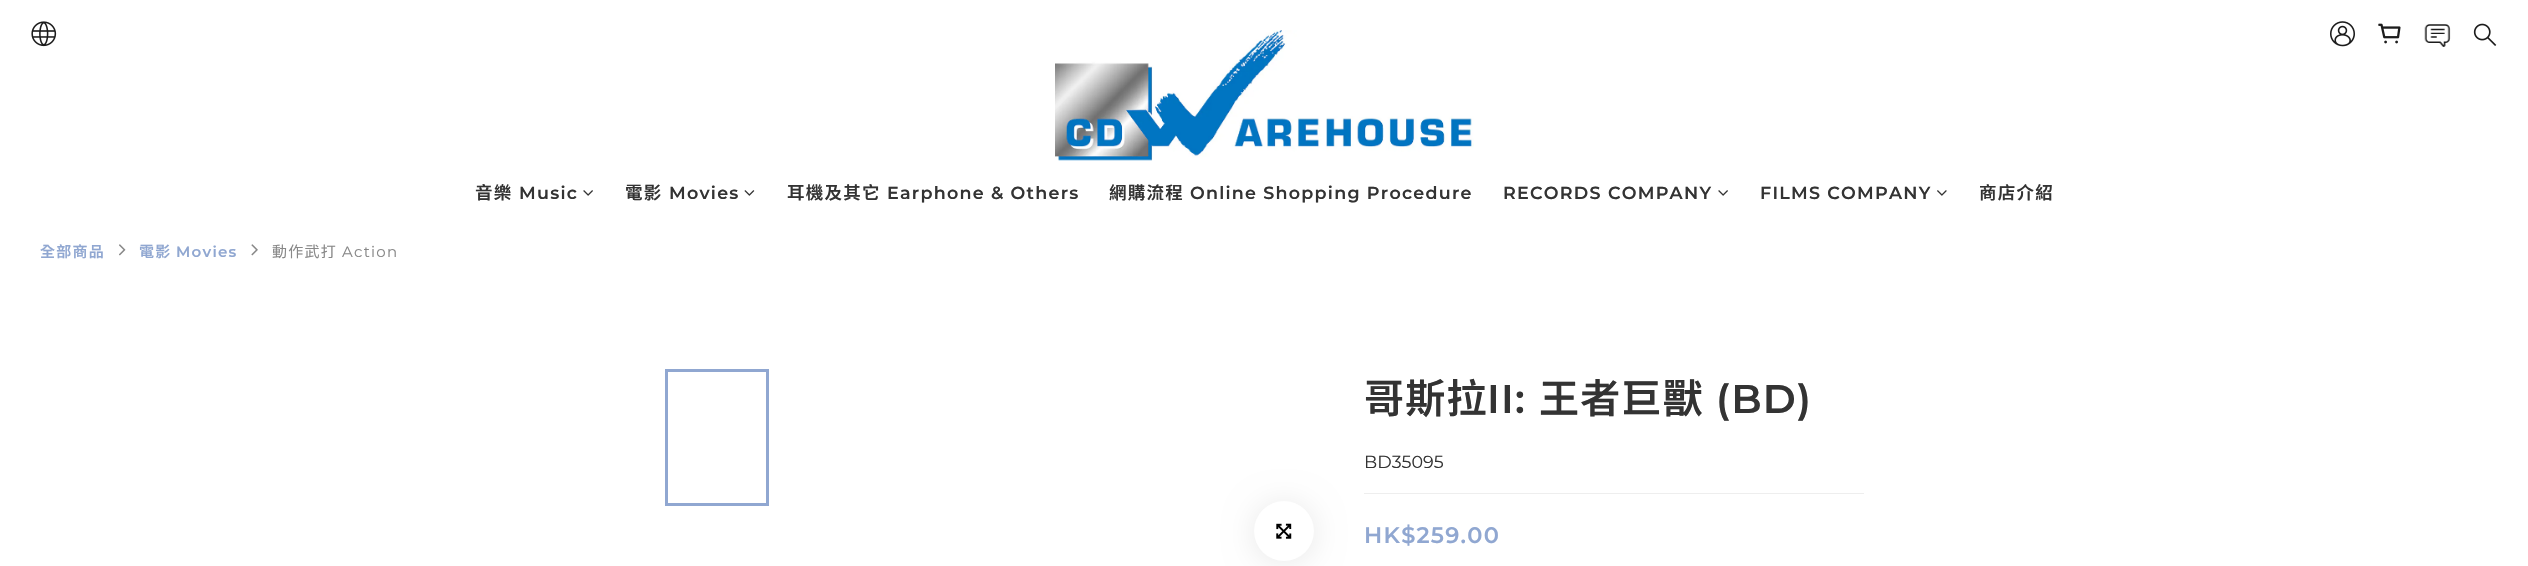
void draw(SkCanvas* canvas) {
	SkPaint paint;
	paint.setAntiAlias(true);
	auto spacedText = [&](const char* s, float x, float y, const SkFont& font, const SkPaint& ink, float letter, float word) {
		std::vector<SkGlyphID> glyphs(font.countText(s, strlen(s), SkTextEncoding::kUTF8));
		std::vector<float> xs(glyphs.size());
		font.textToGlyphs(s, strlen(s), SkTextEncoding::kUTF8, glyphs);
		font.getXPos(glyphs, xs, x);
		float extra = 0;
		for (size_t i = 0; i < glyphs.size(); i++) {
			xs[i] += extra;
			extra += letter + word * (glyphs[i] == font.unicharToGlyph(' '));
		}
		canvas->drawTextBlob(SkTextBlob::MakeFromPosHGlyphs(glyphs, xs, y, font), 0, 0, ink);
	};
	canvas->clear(0xffffffff);
	canvas->drawImageRect(SkImages::DeferredFromEncodedData(SkData::MakeFromFileName("img1.png")), SkRect::MakeXYWH(31, 21, 26, 26), SkSamplingOptions());
	canvas->drawImageRect(SkImages::DeferredFromEncodedData(SkData::MakeFromFileName("img2.png")), SkRect::MakeXYWH(2330, 21, 25, 26), SkSamplingOptions());
	canvas->drawImageRect(SkImages::DeferredFromEncodedData(SkData::MakeFromFileName("img3.png")), SkRect::MakeXYWH(2378, 23, 23, 21), SkSamplingOptions());
	canvas->drawImageRect(SkImages::DeferredFromEncodedData(SkData::MakeFromFileName("img4.png")), SkRect::MakeXYWH(2424, 24, 27, 23), SkSamplingOptions());
	canvas->drawImageRect(SkImages::DeferredFromEncodedData(SkData::MakeFromFileName("img5.png")), SkRect::MakeXYWH(2473, 23, 24, 23), SkSamplingOptions());
	canvas->drawImageRect(SkImages::DeferredFromEncodedData(SkData::MakeFromFileName("img6.png")), SkRect::MakeXYWH(1055, 30, 419, 131), SkSamplingOptions());
	SkFont f1(fontMgr->matchFamilyStyle("Noto Sans TC", SkFontStyle(600, SkFontStyle::kNormal_Width, SkFontStyle::kUpright_Slant)), 17.5);
	f1.setSubpixel(true);
	paint.setColor(0xff333333);
	spacedText("音樂", 475, 199, f1, paint, 1.25, 0);
	SkFont f2(fontMgr->matchFamilyStyle("Montserrat", SkFontStyle(600, SkFontStyle::kNormal_Width, SkFontStyle::kUpright_Slant)), 17.5);
	f2.setSubpixel(true);
	spacedText("Music", 519, 199, f2, paint, 1.25, 0);
	canvas->drawImageRect(SkImages::DeferredFromEncodedData(SkData::MakeFromFileName("img7.png")), SkRect::MakeXYWH(583, 190, 10, 6), SkSamplingOptions());
	spacedText("電影", 625, 199, f1, paint, 1.25, 0);
	spacedText("Movies", 669, 199, f2, paint, 1.25, 0);
	canvas->drawImageRect(SkImages::DeferredFromEncodedData(SkData::MakeFromFileName("img8.png")), SkRect::MakeXYWH(744, 190, 11, 6), SkSamplingOptions());
	spacedText("耳機及其它", 787, 199, f1, paint, 1.25, 0);
	spacedText("Earphone & Others", 887, 199, f2, paint, 1.25, 0);
	spacedText("網購流程", 1109, 199, f1, paint, 1.25, 0);
	spacedText("Online Shopping Procedure", 1190, 199, f2, paint, 1.25, 0);
	spacedText("RECORDS COMPANY", 1503, 199, f2, paint, 1.25, 0);
	canvas->drawImageRect(SkImages::DeferredFromEncodedData(SkData::MakeFromFileName("img7.png")), SkRect::MakeXYWH(1718, 190, 10, 6), SkSamplingOptions());
	spacedText("FILMS COMPANY", 1760, 199, f2, paint, 1.25, 0);
	canvas->drawImageRect(SkImages::DeferredFromEncodedData(SkData::MakeFromFileName("img9.png")), SkRect::MakeXYWH(1937, 190, 10, 6), SkSamplingOptions());
	spacedText("商店介紹", 1979, 199, f1, paint, 1.25, 0);
	SkFont f3(fontMgr->matchFamilyStyle("Noto Sans TC", SkFontStyle(600, SkFontStyle::kNormal_Width, SkFontStyle::kUpright_Slant)), 15);
	f3.setSubpixel(true);
	paint.setColor(0xff90a7d1);
	spacedText("全部商品", 40, 257, f3, paint, 1.25, 0);
	canvas->drawImageRect(SkImages::DeferredFromEncodedData(SkData::MakeFromFileName("img10.png")), SkRect::MakeXYWH(119, 244, 7, 12), SkSamplingOptions());
	spacedText("電影", 139, 257, f3, paint, 1.25, 0);
	SkFont f4(fontMgr->matchFamilyStyle("Montserrat", SkFontStyle(600, SkFontStyle::kNormal_Width, SkFontStyle::kUpright_Slant)), 15);
	f4.setSubpixel(true);
	spacedText("Movies", 176, 257, f4, paint, 1.25, 0);
	canvas->drawImageRect(SkImages::DeferredFromEncodedData(SkData::MakeFromFileName("img11.png")), SkRect::MakeXYWH(251, 244, 7, 12), SkSamplingOptions());
	SkFont f5(fontMgr->matchFamilyStyle("Noto Sans TC", SkFontStyle::Normal()), 15);
	f5.setSubpixel(true);
	paint.setColor(0xff888888);
	spacedText("動作武打", 272, 257, f5, paint, 1.25, 0);
	SkFont f6(fontMgr->matchFamilyStyle("Montserrat", SkFontStyle::Normal()), 15);
	f6.setSubpixel(true);
	spacedText("Action", 342, 257, f6, paint, 1.25, 0);
	paint.setStroke(true);
	paint.setStrokeWidth(3);
	paint.setColor(0xff90a7d1);
	canvas->drawRect(SkRect::MakeXYWH(666.5, 370.5, 101, 134), paint);
	paint.setStroke(false);
	paint.setColor(0x17000000);
	paint.setMaskFilter(SkMaskFilter::MakeBlur(kNormal_SkBlurStyle, 15));
	canvas->drawRoundRect(SkRect::MakeXYWH(1254, 503, 60, 60), 30, 30, paint);
	paint.setMaskFilter(nullptr);
	paint.setColor(0xffffffff);
	canvas->drawCircle(1284, 531, 30, paint);
	canvas->drawImageRect(SkImages::DeferredFromEncodedData(SkData::MakeFromFileName("img12.png")), SkRect::MakeXYWH(1276, 523, 16, 16), SkSamplingOptions());
	SkFont f7(fontMgr->matchFamilyStyle("Noto Sans TC", SkFontStyle(600, SkFontStyle::kNormal_Width, SkFontStyle::kUpright_Slant)), 40);
	f7.setSubpixel(true);
	paint.setColor(0xff333333);
	spacedText("哥斯拉", 1364, 413, f7, paint, 1.25, 0);
	SkFont f8(fontMgr->matchFamilyStyle("Montserrat", SkFontStyle(600, SkFontStyle::kNormal_Width, SkFontStyle::kUpright_Slant)), 40);
	f8.setSubpixel(true);
	spacedText("II:", 1487, 413, f8, paint, 1.25, 0);
	spacedText("王者巨獸", 1539, 413, f7, paint, 1.25, 0);
	spacedText("(BD)", 1716, 413, f8, paint, 1.25, 0);
	SkFont f9(fontMgr->matchFamilyStyle("Montserrat", SkFontStyle::Normal()), 17.5);
	f9.setSubpixel(true);
	canvas->drawString("BD35095", 1364, 468, f9, paint);
	paint.setColor(0xffeeeeee);
	canvas->drawRect(SkRect::MakeXYWH(1364, 493, 500, 1), paint);
	SkFont f10(fontMgr->matchFamilyStyle("Montserrat", SkFontStyle(600, SkFontStyle::kNormal_Width, SkFontStyle::kUpright_Slant)), 22.5);
	f10.setSubpixel(true);
	paint.setColor(0xff90a7d1);
	spacedText("HK$259.00", 1364, 543, f10, paint, 1.25, 0);
}
